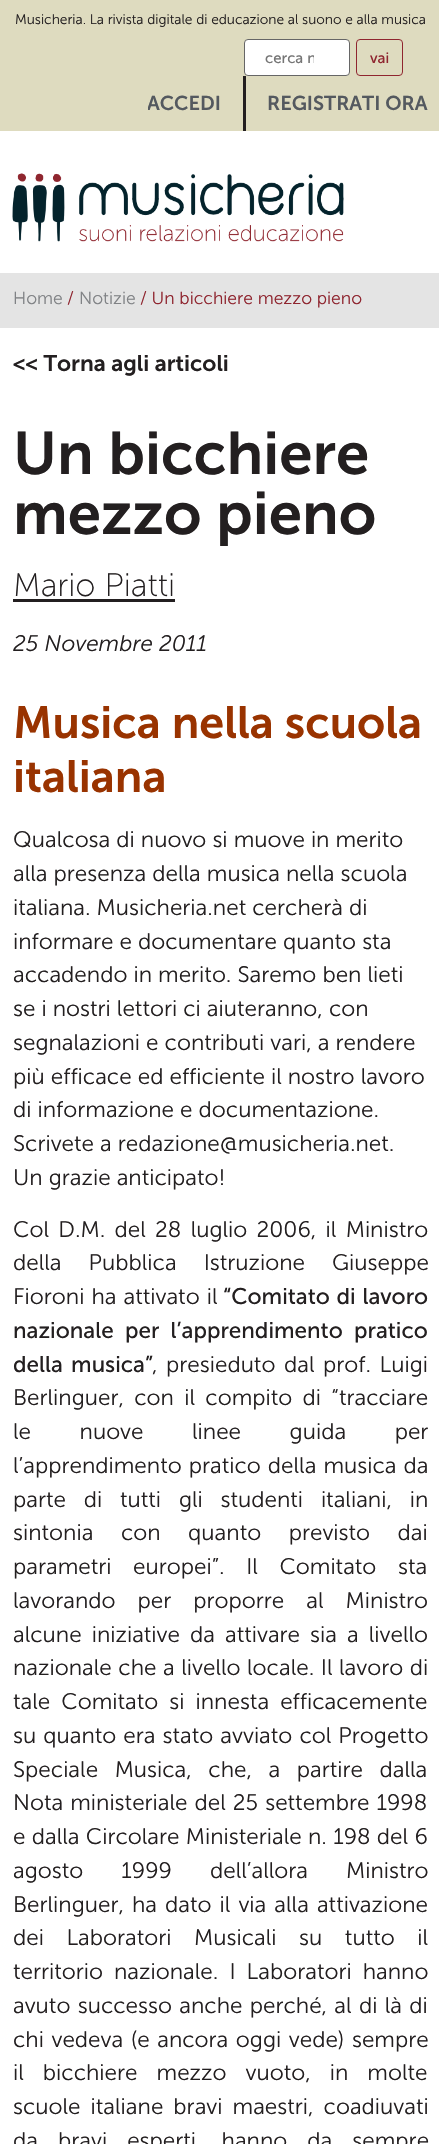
void draw(SkCanvas* canvas) {
	SkPaint paint;
	paint.setAntiAlias(true);
	auto spacedText = [&](const char* s, float x, float y, const SkFont& font, const SkPaint& ink, float letter, float word) {
		std::vector<SkGlyphID> glyphs(font.countText(s, strlen(s), SkTextEncoding::kUTF8));
		std::vector<float> xs(glyphs.size());
		font.textToGlyphs(s, strlen(s), SkTextEncoding::kUTF8, glyphs);
		font.getXPos(glyphs, xs, x);
		float extra = 0;
		for (size_t i = 0; i < glyphs.size(); i++) {
			xs[i] += extra;
			extra += letter + word * (glyphs[i] == font.unicharToGlyph(' '));
		}
		canvas->drawTextBlob(SkTextBlob::MakeFromPosHGlyphs(glyphs, xs, y, font), 0, 0, ink);
	};
	canvas->clear(0xffffffff);
	paint.setColor(0xffdedbbf);
	canvas->drawRect(SkRect::MakeXYWH(0, 0, 439, 131), paint);
	SkFont f1(fontMgr->matchFamilyStyle("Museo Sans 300", SkFontStyle(300, SkFontStyle::kNormal_Width, SkFontStyle::kUpright_Slant)), 13.75);
	f1.setSubpixel(true);
	paint.setColor(0xff231f20);
	canvas->drawString("Musicheria. La rivista digitale di educazione al suono e alla musica", 15, 24, f1, paint);
	paint.setColor(0xffffffff);
	canvas->drawRoundRect(SkRect::MakeXYWH(244.5, 39.5, 105, 36), 3.5, 3.5, paint);
	paint.setStroke(true);
	paint.setStrokeWidth(1);
	paint.setColor(0xff666666);
	canvas->drawRoundRect(SkRect::MakeXYWH(244.5, 39.5, 105, 36), 3.5, 3.5, paint);
	canvas->save();
	canvas->clipRect(SkRect::MakeXYWH(265, 49, 49, 17));
	SkFont f2(fontMgr->matchFamilyStyle("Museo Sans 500", SkFontStyle::Normal()), 15);
	f2.setSubpixel(true);
	paint.setStroke(false);
	paint.setColor(0xff757575);
	canvas->drawString("cerca n", 265, 63, f2, paint);
	canvas->restore();
	paint.setStroke(true);
	paint.setColor(0xff8f252f);
	canvas->drawRoundRect(SkRect::MakeXYWH(356.5, 39.5, 46, 36), 3.5, 3.5, paint);
	paint.setStroke(false);
	canvas->drawString("vai", 370, 63, f2, paint);
	canvas->save();
	canvas->clipRect(SkRect::MakeXYWH(148, 76, 280, 55));
	SkFont f3(fontMgr->matchFamilyStyle("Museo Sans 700", SkFontStyle(600, SkFontStyle::kNormal_Width, SkFontStyle::kUpright_Slant)), 20);
	f3.setSubpixel(true);
	paint.setColor(0xff54595f);
	canvas->drawString("ACCEDI", 147, 110, f3, paint);
	canvas->restore();
	paint.setColor(0xff231f20);
	canvas->drawRect(SkRect::MakeXYWH(243, 76, 3, 55), paint);
	paint.setColor(0xff54595f);
	canvas->drawString("REGISTRATI ORA", 267, 110, f3, paint);
	canvas->drawImageRect(SkImages::DeferredFromEncodedData(SkData::MakeFromFileName("img1.png")), SkRect::MakeXYWH(12, 173, 332, 69), SkSamplingOptions());
	paint.setColor(0xffe4e4e4);
	canvas->drawRect(SkRect::MakeXYWH(0, 273, 439, 55), paint);
	SkFont f4(fontMgr->matchFamilyStyle("Museo Sans 300", SkFontStyle(300, SkFontStyle::kNormal_Width, SkFontStyle::kUpright_Slant)), 17.5);
	f4.setSubpixel(true);
	paint.setColor(0xff808285);
	canvas->drawString("Home", 13, 304, f4, paint);
	paint.setColor(0xff8f252f);
	canvas->drawString("/", 67, 304, f4, paint);
	paint.setColor(0xff808285);
	canvas->drawString("Notizie", 79, 304, f4, paint);
	paint.setColor(0xff8f252f);
	canvas->drawString("/ Un bicchiere mezzo pieno", 140, 304, f4, paint);
	SkFont f5(fontMgr->matchFamilyStyle("Museo Sans 700", SkFontStyle(600, SkFontStyle::kNormal_Width, SkFontStyle::kUpright_Slant)), 22.5);
	f5.setSubpixel(true);
	paint.setColor(0xff231f20);
	canvas->drawString("<< Torna agli articoli", 13, 371, f5, paint);
	SkFont f6(fontMgr->matchFamilyStyle("Museo Sans 700", SkFontStyle(600, SkFontStyle::kNormal_Width, SkFontStyle::kUpright_Slant)), 60);
	f6.setSubpixel(true);
	canvas->drawString("Un bicchiere", 13, 474, f6, paint);
	canvas->drawString("mezzo pieno", 13, 534, f6, paint);
	SkFont f7(fontMgr->matchFamilyStyle("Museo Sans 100", SkFontStyle(300, SkFontStyle::kNormal_Width, SkFontStyle::kUpright_Slant)), 32.5);
	f7.setSubpixel(true);
	canvas->drawString("Mario Piatti", 13, 596, f7, paint);
	canvas->drawRect(SkRect::MakeXYWH(13, 599, 162, 3), paint);
	SkFont f8(fontMgr->matchFamilyStyle("Museo Sans 300", SkFontStyle(300, SkFontStyle::kNormal_Width, SkFontStyle::kItalic_Slant)), 22.5);
	f8.setSubpixel(true);
	canvas->drawString("25 Novembre 2011", 13, 651, f8, paint);
	SkFont f9(fontMgr->matchFamilyStyle("Museo Sans 700", SkFontStyle(600, SkFontStyle::kNormal_Width, SkFontStyle::kUpright_Slant)), 45);
	f9.setSubpixel(true);
	paint.setColor(0xff993300);
	canvas->drawString("Musica nella scuola", 13, 738, f9, paint);
	canvas->drawString("italiana", 13, 792, f9, paint);
	SkFont f10(fontMgr->matchFamilyStyle("Museo Sans 300", SkFontStyle(300, SkFontStyle::kNormal_Width, SkFontStyle::kUpright_Slant)), 22.5);
	f10.setSubpixel(true);
	paint.setColor(0xff231f20);
	canvas->drawString("Qualcosa di nuovo si muove in merito", 13, 847, f10, paint);
	canvas->drawString("alla presenza della musica nella scuola", 13, 881, f10, paint);
	canvas->drawString("italiana. Musicheria.net cercherà di", 13, 915, f10, paint);
	canvas->drawString("informare e documentare quanto sta", 13, 949, f10, paint);
	canvas->drawString("accadendo in merito. Saremo ben lieti", 13, 982, f10, paint);
	canvas->drawString("se i nostri lettori ci aiuteranno, con", 13, 1016, f10, paint);
	canvas->drawString("segnalazioni e contributi vari, a rendere", 13, 1050, f10, paint);
	canvas->drawString("più efficace ed efficiente il nostro lavoro", 13, 1084, f10, paint);
	canvas->drawString("di informazione e documentazione.", 13, 1117, f10, paint);
	canvas->drawString("Scrivete a redazione@musicheria.net.", 13, 1151, f10, paint);
	canvas->drawString("Un grazie anticipato!", 13, 1185, f10, paint);
	spacedText("Col D.M. del 28 luglio 2006, il Ministro", 13, 1237, f10, paint, 0, 3.25);
	spacedText("della Pubblica Istruzione Giuseppe", 13, 1270, f10, paint, 0, 21);
	spacedText("Fioroni ha attivato il", 13, 1304, f10, paint, 0, 1);
	SkFont f11(fontMgr->matchFamilyStyle("Museo Sans 500", SkFontStyle::Normal()), 22.5);
	f11.setSubpixel(true);
	spacedText("“Comitato di lavoro", 223, 1304, f11, paint, 0, 1);
	spacedText("nazionale per l’apprendimento pratico", 13, 1338, f11, paint, 0, 5.5);
	spacedText("della musica”", 13, 1372, f11, paint, 0, 2.5);
	spacedText(", presieduto dal prof. Luigi", 152, 1372, f10, paint, 0, 2.5);
	spacedText("Berlinguer, con il compito di “tracciare", 13, 1405, f10, paint, 0, 4.25);
	spacedText("le nuove linee guida per", 13, 1439, f10, paint, 0, 42.5);
	spacedText("l’apprendimento pratico della musica da", 13, 1473, f10, paint, 0, 1);
	spacedText("parte di tutti gli studenti italiani, in", 13, 1507, f10, paint, 0, 11.75);
	spacedText("sintonia con quanto previsto dai", 13, 1540, f10, paint, 0, 21.5);
	spacedText("parametri europei”. Il Comitato sta", 13, 1574, f10, paint, 0, 15.5);
	spacedText("lavorando per proporre al Ministro", 13, 1608, f10, paint, 0, 16);
	spacedText("alcune iniziative da attivare sia a livello", 13, 1642, f10, paint, 0, 4);
	spacedText("nazionale che a livello locale. Il lavoro di", 13, 1675, f10, paint, 0, 0.5);
	spacedText("tale Comitato si innesta efficacemente", 13, 1709, f10, paint, 0, 5);
	spacedText("su quanto era stato avviato col Progetto", 13, 1743, f10, paint, 0, 1);
	spacedText("Speciale Musica, che, a partire dalla", 13, 1777, f10, paint, 0, 10.5);
	spacedText("Nota ministeriale del 25 settembre 1998", 13, 1810, f10, paint, 0, 1);
	spacedText("e dalla Circolare Ministeriale n. 198 del 6", 13, 1844, f10, paint, 0, 0.25);
	spacedText("agosto 1999 dell’allora Ministro", 13, 1878, f10, paint, 0, 32);
	spacedText("Berlinguer, ha dato il via alla attivazione", 13, 1912, f10, paint, 0, 2);
	spacedText("dei Laboratori Musicali su tutto il", 13, 1945, f10, paint, 0, 16.5);
	spacedText("territorio nazionale. I Laboratori hanno", 13, 1979, f10, paint, 0, 5);
	spacedText("avuto successo anche perché, al di là di", 13, 2013, f10, paint, 0, 1.25);
	spacedText("chi vedeva (e ancora oggi vede) sempre", 13, 2047, f10, paint, 0, 1.5);
	spacedText("il bicchiere mezzo vuoto, in molte", 13, 2080, f10, paint, 0, 13);
	spacedText("scuole italiane bravi maestri, coadiuvati", 13, 2114, f10, paint, 0, 4);
	spacedText("da bravi esperti, hanno da sempre", 13, 2148, f10, paint, 0, 14);
}
